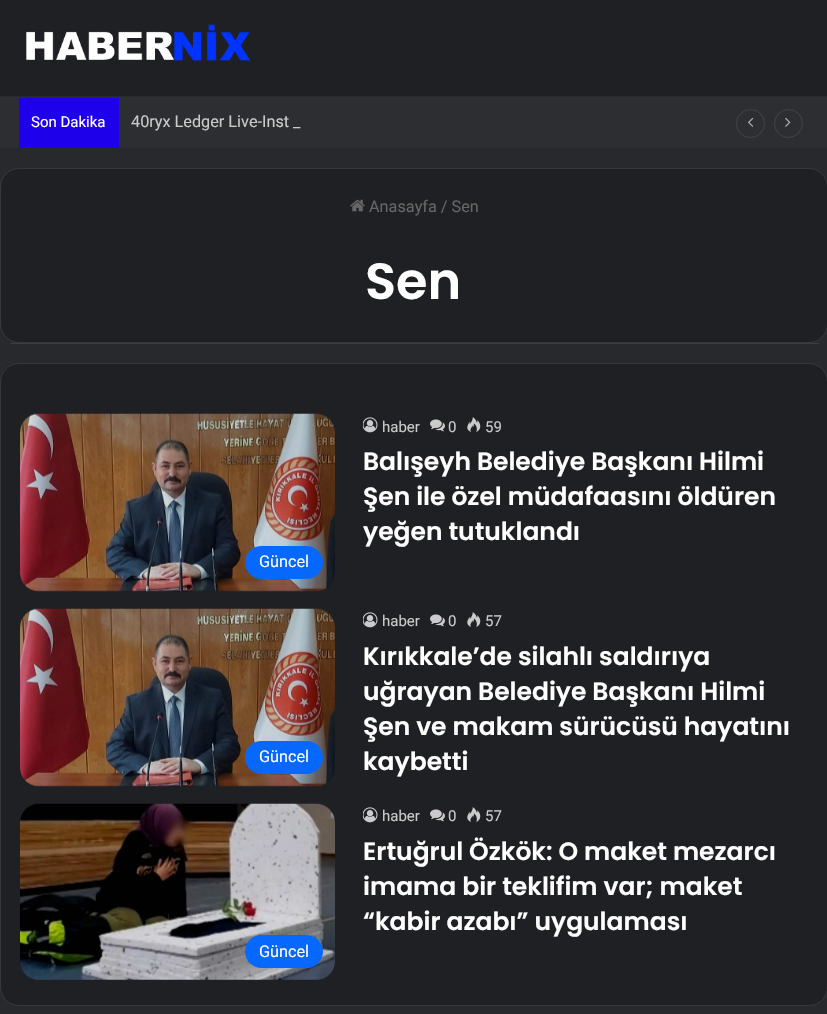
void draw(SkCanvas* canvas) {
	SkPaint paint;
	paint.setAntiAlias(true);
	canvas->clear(0xff27292d);
	paint.setColor(0xff1f2024);
	canvas->drawRect(SkRect::MakeXYWH(0, 0, 827, 96), paint);
	canvas->drawImageRect(SkImages::DeferredFromEncodedData(SkData::MakeFromFileName("img1.png")), SkRect::MakeXYWH(26, 24, 224, 37), SkSamplingOptions());
	paint.setColor(0xff2c2e32);
	canvas->drawRect(SkRect::MakeXYWH(0, 97, 827, 51), paint);
	paint.setColor(0xff1f00ea);
	canvas->drawRect(SkRect::MakeXYWH(19, 98, 100, 50), paint);
	SkFont f1(fontMgr->matchFamilyStyle("Roboto", SkFontStyle::Normal()), 15);
	f1.setSubpixel(true);
	paint.setColor(0xffffffff);
	canvas->drawString("Son Dakika", 31, 127, f1, paint);
	SkFont f2(fontMgr->matchFamilyStyle("Roboto", SkFontStyle::Normal()), 16.25);
	f2.setSubpixel(true);
	paint.setColor(0xffcacaca);
	canvas->drawString("40ryx Ledger Live-Inst", 131, 127, f2, paint);
	canvas->drawString("_", 293, 127, f2, paint);
	paint.setStroke(true);
	paint.setStrokeWidth(1);
	paint.setColor(0xff414347);
	canvas->drawCircle(750.5, 123.5, 14, paint);
	canvas->drawImageRect(SkImages::DeferredFromEncodedData(SkData::MakeFromFileName("img2.png")), SkRect::MakeXYWH(748, 117, 6, 10), SkSamplingOptions());
	canvas->drawCircle(788.5, 123.5, 14, paint);
	canvas->drawImageRect(SkImages::DeferredFromEncodedData(SkData::MakeFromFileName("img3.png")), SkRect::MakeXYWH(785, 117, 6, 10), SkSamplingOptions());
	paint.setStroke(false);
	paint.setColor(0xff1f2024);
	canvas->drawRoundRect(SkRect::MakeXYWH(0, 168, 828, 175), 19, 19, paint);
	paint.setStroke(true);
	paint.setColor(0x1affffff);
	canvas->drawRoundRect(SkRect::MakeXYWH(0.5, 168.5, 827, 174), 18.5, 18.5, paint);
	canvas->drawImageRect(SkImages::DeferredFromEncodedData(SkData::MakeFromFileName("img4.png")), SkRect::MakeXYWH(350, 199, 15, 13), SkSamplingOptions());
	paint.setStroke(false);
	paint.setColor(0xff666666);
	canvas->drawString("Anasayfa / Sen", 369, 212, f2, paint);
	SkFont f3(fontMgr->matchFamilyStyle("Poppins", SkFontStyle(600, SkFontStyle::kNormal_Width, SkFontStyle::kUpright_Slant)), 51);
	f3.setSubpixel(true);
	paint.setColor(0xffffffff);
	canvas->drawString("Sen", 365, 299, f3, paint);
	paint.setColor(0xff3d3e42);
	canvas->drawRect(SkRect::MakeXYWH(10, 343, 809, 1), paint);
	paint.setColor(0xff1f2024);
	canvas->drawRoundRect(SkRect::MakeXYWH(0, 363, 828, 643), 19, 19, paint);
	paint.setStroke(true);
	paint.setColor(0x1afdfdfd);
	canvas->drawRoundRect(SkRect::MakeXYWH(0.5, 363.5, 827, 642), 18.5, 18.5, paint);
	canvas->drawImageRect(SkImages::DeferredFromEncodedData(SkData::MakeFromFileName("img5.png")), SkRect::MakeXYWH(363, 417, 15, 16), SkSamplingOptions());
	paint.setStroke(false);
	paint.setColor(0xffcacaca);
	canvas->drawString("haber", 382, 432, f1, paint);
	canvas->drawImageRect(SkImages::DeferredFromEncodedData(SkData::MakeFromFileName("img6.png")), SkRect::MakeXYWH(430, 419, 15, 13), SkSamplingOptions());
	canvas->drawString("0", 448, 432, f1, paint);
	canvas->drawImageRect(SkImages::DeferredFromEncodedData(SkData::MakeFromFileName("img7.png")), SkRect::MakeXYWH(467, 417, 14, 15), SkSamplingOptions());
	canvas->drawString("59", 485, 432, f1, paint);
	SkFont f4(fontMgr->matchFamilyStyle("Poppins", SkFontStyle(600, SkFontStyle::kNormal_Width, SkFontStyle::kUpright_Slant)), 25);
	f4.setSubpixel(true);
	paint.setColor(0xffffffff);
	canvas->drawString("Balışeyh Belediye Başkanı Hilmi", 363, 470, f4, paint);
	canvas->drawString("Şen ile özel müdafaasını öldüren", 363, 505, f4, paint);
	canvas->drawString("yeğen tutuklandı", 363, 540, f4, paint);
	canvas->drawImageRect(SkImages::DeferredFromEncodedData(SkData::MakeFromFileName("img8.png")), SkRect::MakeXYWH(20, 413, 315, 179), SkSamplingOptions());
	paint.setColor(0xff0668fd);
	canvas->drawRoundRect(SkRect::MakeXYWH(245, 546, 78, 33), 16.5, 16.5, paint);
	paint.setColor(0xffffffff);
	canvas->drawString("Güncel", 259, 567, f2, paint);
	canvas->drawImageRect(SkImages::DeferredFromEncodedData(SkData::MakeFromFileName("img9.png")), SkRect::MakeXYWH(20, 608, 315, 179), SkSamplingOptions());
	paint.setColor(0xff0668fd);
	canvas->drawRoundRect(SkRect::MakeXYWH(245, 741, 78, 33), 16.5, 16.5, paint);
	paint.setColor(0xffffffff);
	canvas->drawString("Güncel", 259, 762, f2, paint);
	canvas->drawImageRect(SkImages::DeferredFromEncodedData(SkData::MakeFromFileName("img5.png")), SkRect::MakeXYWH(363, 612, 15, 16), SkSamplingOptions());
	paint.setColor(0xffcacaca);
	canvas->drawString("haber", 382, 626, f1, paint);
	canvas->drawImageRect(SkImages::DeferredFromEncodedData(SkData::MakeFromFileName("img6.png")), SkRect::MakeXYWH(430, 614, 15, 13), SkSamplingOptions());
	canvas->drawString("0", 448, 626, f1, paint);
	canvas->drawImageRect(SkImages::DeferredFromEncodedData(SkData::MakeFromFileName("img7.png")), SkRect::MakeXYWH(467, 612, 14, 15), SkSamplingOptions());
	canvas->drawString("57", 485, 626, f1, paint);
	paint.setColor(0xffffffff);
	canvas->drawString("Kırıkkale’de silahlı saldırıya", 363, 665, f4, paint);
	canvas->drawString("uğrayan Belediye Başkanı Hilmi", 363, 700, f4, paint);
	canvas->drawString("Şen ve makam sürücüsü hayatını", 363, 735, f4, paint);
	canvas->drawString("kaybetti", 363, 770, f4, paint);
	canvas->drawImageRect(SkImages::DeferredFromEncodedData(SkData::MakeFromFileName("img5.png")), SkRect::MakeXYWH(363, 807, 15, 16), SkSamplingOptions());
	paint.setColor(0xffcacaca);
	canvas->drawString("haber", 382, 821, f1, paint);
	canvas->drawImageRect(SkImages::DeferredFromEncodedData(SkData::MakeFromFileName("img6.png")), SkRect::MakeXYWH(430, 809, 15, 13), SkSamplingOptions());
	canvas->drawString("0", 448, 821, f1, paint);
	canvas->drawImageRect(SkImages::DeferredFromEncodedData(SkData::MakeFromFileName("img7.png")), SkRect::MakeXYWH(467, 807, 14, 15), SkSamplingOptions());
	canvas->drawString("57", 485, 821, f1, paint);
	paint.setColor(0xffffffff);
	canvas->drawString("Ertuğrul Özkök: O maket mezarcı", 363, 860, f4, paint);
	canvas->drawString("imama bir teklifim var; maket", 363, 895, f4, paint);
	canvas->drawString("“kabir azabı” uygulaması", 363, 930, f4, paint);
	canvas->drawImageRect(SkImages::DeferredFromEncodedData(SkData::MakeFromFileName("img10.png")), SkRect::MakeXYWH(20, 803, 315, 177), SkSamplingOptions());
	paint.setColor(0xff0668fd);
	canvas->drawRoundRect(SkRect::MakeXYWH(245, 935, 78, 33), 16.5, 16.5, paint);
	paint.setColor(0xffffffff);
	canvas->drawString("Güncel", 259, 957, f2, paint);
}
